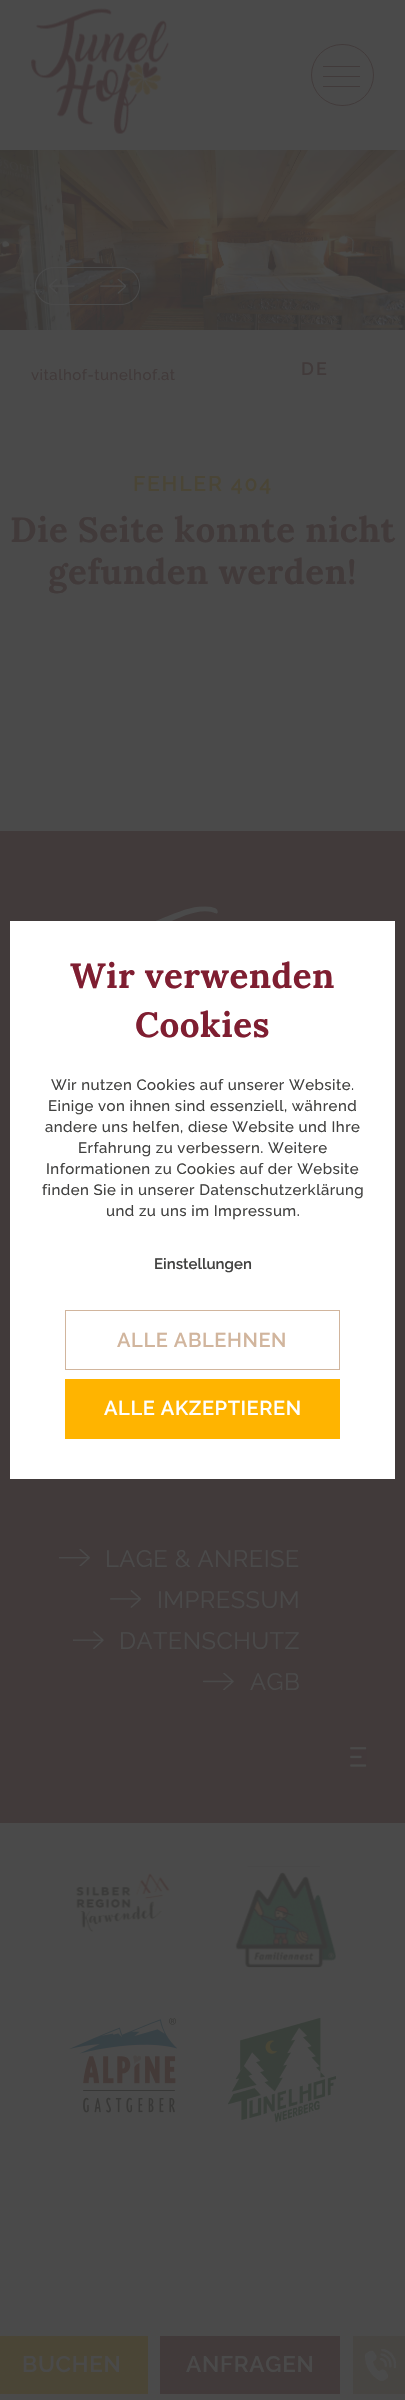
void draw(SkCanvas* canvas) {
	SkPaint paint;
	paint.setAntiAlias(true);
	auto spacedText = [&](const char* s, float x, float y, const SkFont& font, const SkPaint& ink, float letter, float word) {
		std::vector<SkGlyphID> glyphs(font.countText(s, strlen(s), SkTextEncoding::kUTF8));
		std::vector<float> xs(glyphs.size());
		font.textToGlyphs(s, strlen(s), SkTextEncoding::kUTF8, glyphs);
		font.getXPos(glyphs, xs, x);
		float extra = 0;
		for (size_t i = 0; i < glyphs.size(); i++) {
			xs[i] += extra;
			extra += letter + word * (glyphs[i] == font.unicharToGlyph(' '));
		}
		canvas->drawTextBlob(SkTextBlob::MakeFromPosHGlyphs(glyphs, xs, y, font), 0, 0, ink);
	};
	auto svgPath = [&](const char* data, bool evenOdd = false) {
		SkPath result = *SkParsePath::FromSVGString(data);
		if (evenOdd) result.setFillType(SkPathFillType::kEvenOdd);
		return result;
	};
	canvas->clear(0xff4a4a4a);
	canvas->drawImageRect(SkImages::DeferredFromEncodedData(SkData::MakeFromFileName("img1.png")), SkRect::MakeXYWH(0, 150, 405, 180), SkSamplingOptions());
	canvas->drawImageRect(SkImages::DeferredFromEncodedData(SkData::MakeFromFileName("img2.png")), SkRect::MakeXYWH(49, 279, 26, 15), SkSamplingOptions());
	paint.setColor(0xff4a4a4a);
	canvas->drawPath(svgPath("M54 267H88V305H54C43 305 35 296 35 286C35 276 43 267 54 267ZM54 268H88V304H54C44 304 36 296 36 286C36 276 44 268 54 268Z", true), paint);
	canvas->drawImageRect(SkImages::DeferredFromEncodedData(SkData::MakeFromFileName("img3.png")), SkRect::MakeXYWH(100, 279, 26, 15), SkSamplingOptions());
	canvas->drawPath(svgPath("M88 267H121C132 267 140 276 140 286C140 296 132 305 121 305H88ZM88 268H121C131 268 139 276 139 286C139 296 131 304 121 304H88Z", true), paint);
	SkFont f1(fontMgr->matchFamilyStyle("Raleway", SkFontStyle(100, SkFontStyle::kNormal_Width, SkFontStyle::kUpright_Slant)), 15);
	f1.setSubpixel(true);
	paint.setColor(0xff413a3a);
	spacedText("vitalhof-tunelhof.at", 31, 380, f1, paint, 0.5, 0);
	SkFont f2(fontMgr->matchFamilyStyle("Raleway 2", SkFontStyle(100, SkFontStyle::kNormal_Width, SkFontStyle::kUpright_Slant)), 18);
	f2.setSubpixel(true);
	spacedText("DE", 301, 375, f2, paint, 2, 0);
	SkFont f3(fontMgr->matchFamilyStyle("Raleway 2", SkFontStyle(100, SkFontStyle::kNormal_Width, SkFontStyle::kUpright_Slant)), 21.25);
	f3.setSubpixel(true);
	paint.setColor(0xff4a4536);
	spacedText("FEHLER 404", 133, 491, f3, paint, 1.75, 0);
	SkFont f4(fontMgr->matchFamilyStyle("Lora", SkFontStyle::Bold()), 35);
	f4.setSubpixel(true);
	paint.setColor(0xff413a3a);
	spacedText("Die Seite konnte nicht", 10, 542, f4, paint, 0.45, 0);
	spacedText("gefunden werden!", 48, 584, f4, paint, 0.45, 0);
	canvas->drawRect(SkRect::MakeXYWH(0, 831, 405, 992), paint);
	paint.setColor(0xffffffff);
	canvas->drawRect(SkRect::MakeXYWH(10, 921, 385, 558), paint);
	paint.setColor(0xff7f1e31);
	spacedText("Wir verwenden", 70, 988, f4, paint, 0.45, 0);
	spacedText("Cookies", 135, 1037, f4, paint, 0.45, 0);
	paint.setColor(0xff414140);
	spacedText("Wir nutzen Cookies auf unserer Website.", 51, 1090, f1, paint, 0.45, 0);
	spacedText("Einige von ihnen sind essenziell, während", 48, 1111, f1, paint, 0.45, 0);
	spacedText("andere uns helfen, diese Website und Ihre", 45, 1132, f1, paint, 0.45, 0);
	spacedText("Erfahrung zu verbessern. Weitere", 78, 1153, f1, paint, 0.45, 0);
	spacedText("Informationen zu Cookies auf der Website", 46, 1174, f1, paint, 0.45, 0);
	spacedText("finden Sie in unserer Datenschutzerklärung", 42, 1195, f1, paint, 0.45, 0);
	spacedText("und zu uns im Impressum.", 106, 1216, f1, paint, 0.45, 0);
	SkFont f5(fontMgr->matchFamilyStyle("Raleway 2", SkFontStyle(100, SkFontStyle::kNormal_Width, SkFontStyle::kUpright_Slant)), 15);
	f5.setSubpixel(true);
	canvas->drawString("Einstellungen", 154, 1269, f5, paint);
	paint.setStroke(true);
	paint.setStrokeWidth(1);
	paint.setColor(0xffd1b59d);
	canvas->drawRect(SkRect::MakeXYWH(65.5, 1310.5, 274, 59), paint);
	SkFont f6(fontMgr->matchFamilyStyle("Raleway 2", SkFontStyle(100, SkFontStyle::kNormal_Width, SkFontStyle::kUpright_Slant)), 20);
	f6.setSubpixel(true);
	paint.setStroke(false);
	spacedText("ALLE ABLEHNEN", 117, 1347, f6, paint, 0.6, 0);
	paint.setColor(0xffffb400);
	canvas->drawRect(SkRect::MakeXYWH(65, 1379, 275, 60), paint);
	paint.setColor(0xffffffff);
	spacedText("ALLE AKZEPTIEREN", 104, 1415, f6, paint, 0.6, 0);
	canvas->drawImageRect(SkImages::DeferredFromEncodedData(SkData::MakeFromFileName("img4.png")), SkRect::MakeXYWH(156, 906, 62, 15), SkSamplingOptions());
	canvas->drawImageRect(SkImages::DeferredFromEncodedData(SkData::MakeFromFileName("img5.png")), SkRect::MakeXYWH(59, 1549, 31, 17), SkSamplingOptions());
	SkFont f7(fontMgr->matchFamilyStyle("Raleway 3", SkFontStyle(100, SkFontStyle::kNormal_Width, SkFontStyle::kUpright_Slant)), 23.75);
	f7.setSubpixel(true);
	paint.setColor(0xff4a4a4a);
	spacedText("LAGE & ANREISE", 105, 1567, f7, paint, 0.45, 0);
	canvas->drawImageRect(SkImages::DeferredFromEncodedData(SkData::MakeFromFileName("img6.png")), SkRect::MakeXYWH(110, 1590, 31, 18), SkSamplingOptions());
	spacedText("IMPRESSUM", 157, 1608, f7, paint, 0.45, 0);
	canvas->drawImageRect(SkImages::DeferredFromEncodedData(SkData::MakeFromFileName("img7.png")), SkRect::MakeXYWH(73, 1631, 31, 18), SkSamplingOptions());
	spacedText("DATENSCHUTZ", 119, 1649, f7, paint, 0.45, 0);
	canvas->drawImageRect(SkImages::DeferredFromEncodedData(SkData::MakeFromFileName("img8.png")), SkRect::MakeXYWH(203, 1673, 31, 17), SkSamplingOptions());
	spacedText("AGB", 250, 1690, f7, paint, 0.45, 0);
	canvas->drawImageRect(SkImages::DeferredFromEncodedData(SkData::MakeFromFileName("img9.png")), SkRect::MakeXYWH(350, 1747, 17, 20), SkSamplingOptions());
	canvas->drawImageRect(SkImages::DeferredFromEncodedData(SkData::MakeFromFileName("img10.png")), SkRect::MakeXYWH(76, 1873, 94, 59), SkSamplingOptions());
	canvas->drawImageRect(SkImages::DeferredFromEncodedData(SkData::MakeFromFileName("img11.png")), SkRect::MakeXYWH(235, 1866, 101, 102), SkSamplingOptions());
	canvas->drawImageRect(SkImages::DeferredFromEncodedData(SkData::MakeFromFileName("img12.png")), SkRect::MakeXYWH(69, 2018, 108, 95), SkSamplingOptions());
	canvas->drawImageRect(SkImages::DeferredFromEncodedData(SkData::MakeFromFileName("img13.png")), SkRect::MakeXYWH(228, 2018, 108, 105), SkSamplingOptions());
	canvas->drawImageRect(SkImages::DeferredFromEncodedData(SkData::MakeFromFileName("img14.png")), SkRect::MakeXYWH(31, 8, 138, 126), SkSamplingOptions());
	paint.setStroke(true);
	paint.setColor(0xff413a3a);
	canvas->drawRoundRect(SkRect::MakeXYWH(311.5, 44.5, 62, 61), 30.5, 30.5, paint);
	paint.setStroke(false);
	canvas->drawRect(SkRect::MakeXYWH(323, 66, 37, 1), paint);
	canvas->drawRect(SkRect::MakeXYWH(323, 76, 37, 1), paint);
	canvas->drawRect(SkRect::MakeXYWH(323, 86, 37, 1), paint);
	paint.setColor(0xff4a4536);
	canvas->drawRect(SkRect::MakeXYWH(0, 2336, 148, 58), paint);
	SkFont f8(fontMgr->matchFamilyStyle("Raleway 2", SkFontStyle(100, SkFontStyle::kNormal_Width, SkFontStyle::kUpright_Slant)), 22.5);
	f8.setSubpixel(true);
	paint.setColor(0xff4a4a4a);
	spacedText("BUCHEN", 22, 2372, f8, paint, 0.75, 0);
	paint.setColor(0xff413a3a);
	canvas->drawRect(SkRect::MakeXYWH(160, 2336, 180, 58), paint);
	paint.setColor(0xff4a4a4a);
	spacedText("ANFRAGEN", 186, 2372, f8, paint, 0.75, 0);
	paint.setColor(0xff474542);
	canvas->drawRect(SkRect::MakeXYWH(353, 2336, 52, 58), paint);
	canvas->drawImageRect(SkImages::DeferredFromEncodedData(SkData::MakeFromFileName("img15.png")), SkRect::MakeXYWH(365, 2349, 31, 32), SkSamplingOptions());
}
